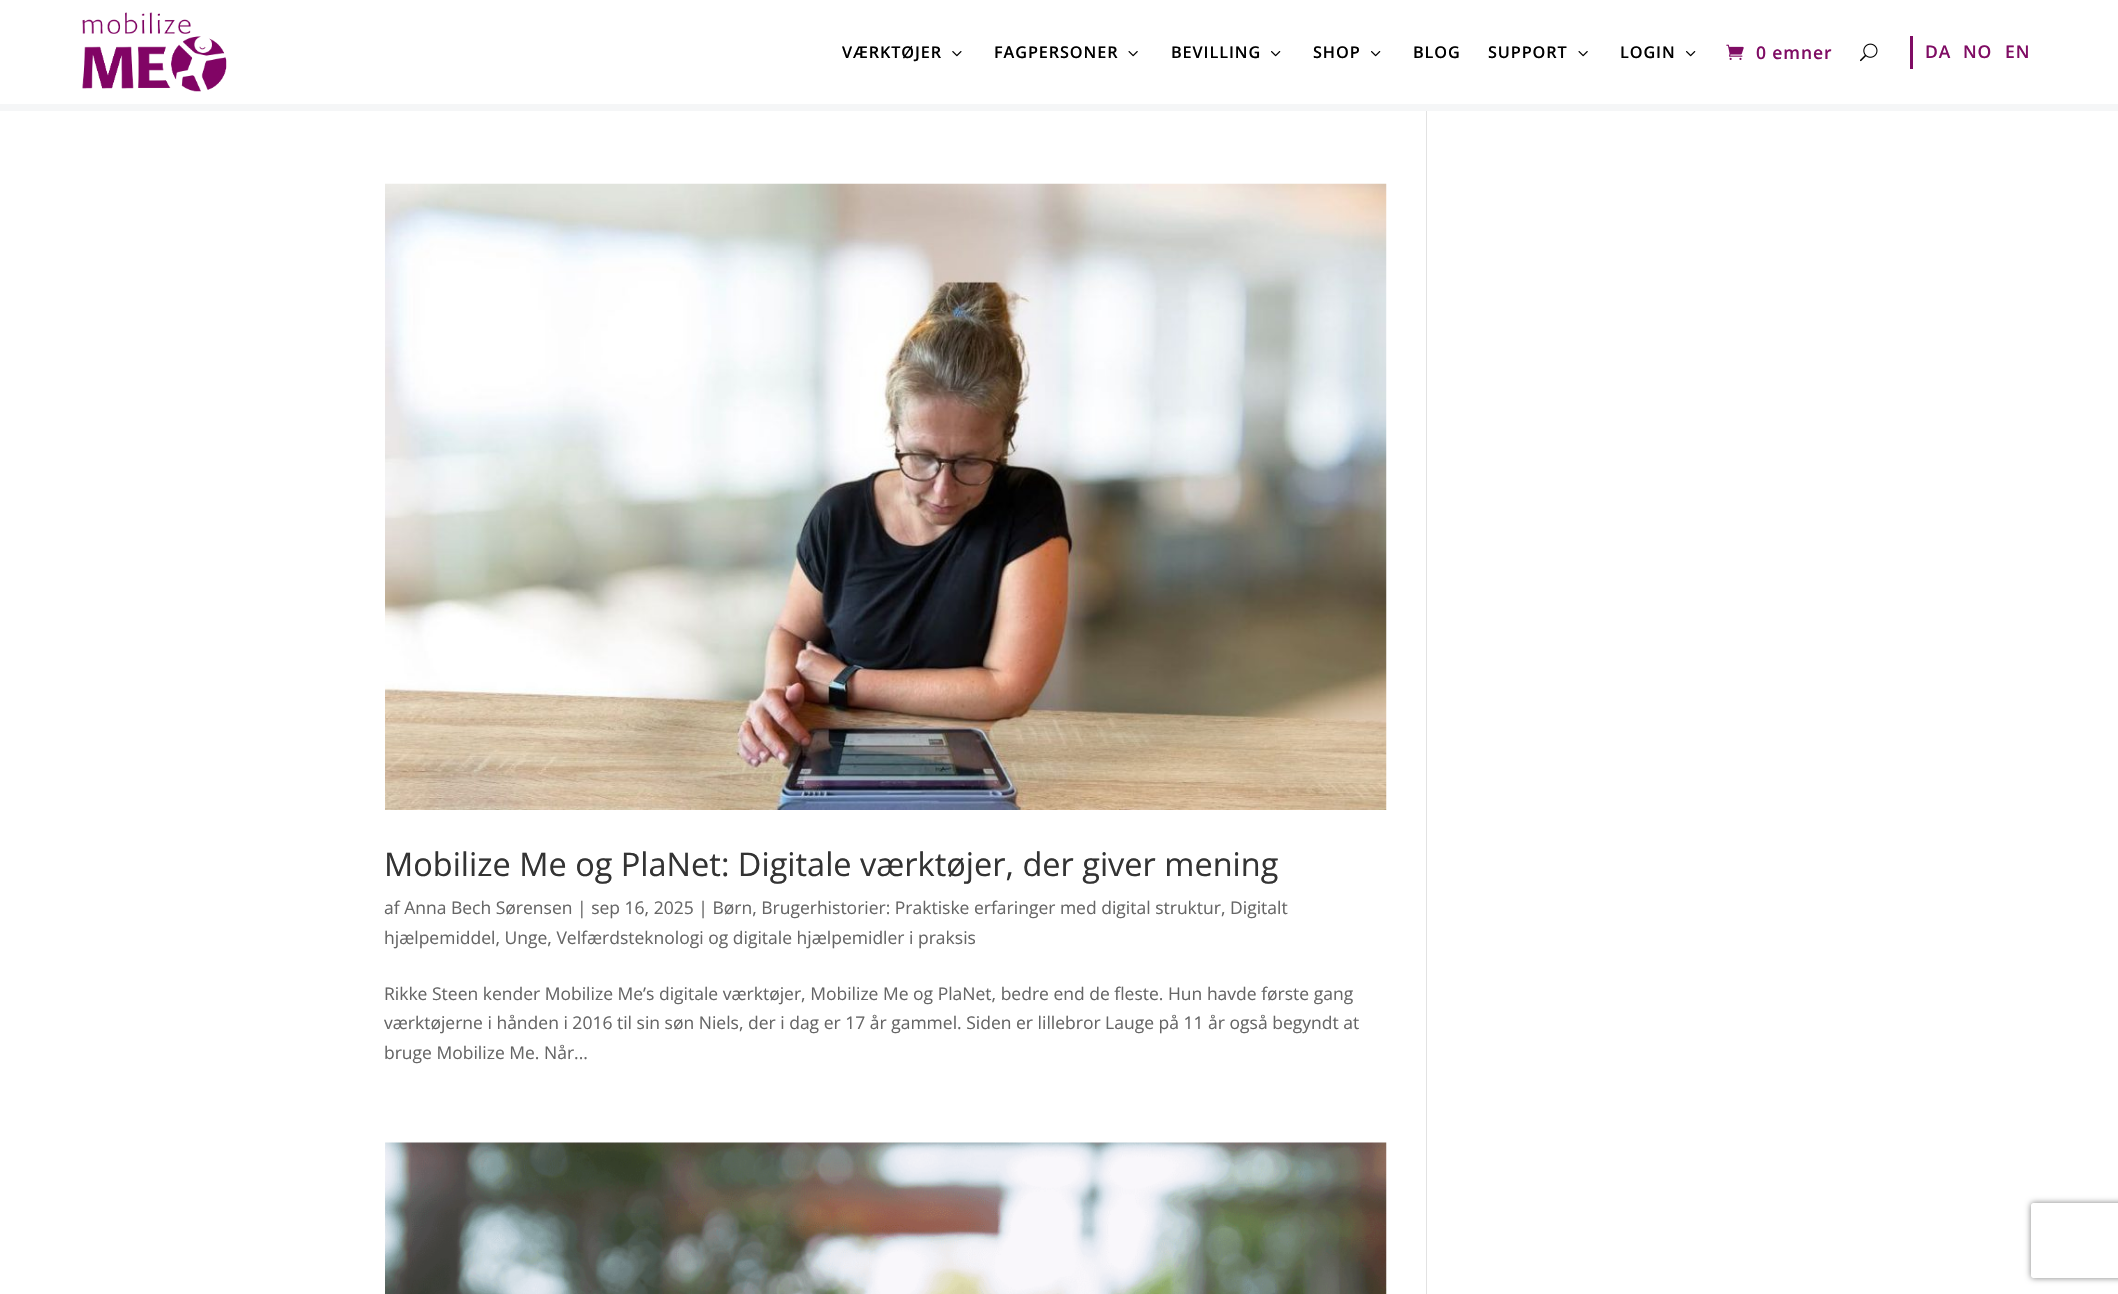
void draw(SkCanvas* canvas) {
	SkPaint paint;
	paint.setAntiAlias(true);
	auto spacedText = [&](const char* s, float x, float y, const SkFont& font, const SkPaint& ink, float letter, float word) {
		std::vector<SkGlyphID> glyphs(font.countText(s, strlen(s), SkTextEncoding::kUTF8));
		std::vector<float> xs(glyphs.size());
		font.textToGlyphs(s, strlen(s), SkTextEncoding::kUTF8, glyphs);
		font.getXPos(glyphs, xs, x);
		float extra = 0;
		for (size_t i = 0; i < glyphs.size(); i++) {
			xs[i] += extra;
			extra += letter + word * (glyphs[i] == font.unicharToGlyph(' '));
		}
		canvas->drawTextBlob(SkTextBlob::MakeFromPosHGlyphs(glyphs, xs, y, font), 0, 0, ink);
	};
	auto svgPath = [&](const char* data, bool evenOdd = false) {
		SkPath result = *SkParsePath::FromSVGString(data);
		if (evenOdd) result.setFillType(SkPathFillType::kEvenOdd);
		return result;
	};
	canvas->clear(0xfff5f6f7);
	paint.setColor(0xffffffff);
	canvas->drawRect(SkRect::MakeXYWH(0, 0, 2118, 104), paint);
	canvas->drawImageRect(SkImages::DeferredFromEncodedData(SkData::MakeFromFileName("img1.png")), SkRect::MakeXYWH(82, 12, 145, 80), SkSamplingOptions());
	SkFont f1(fontMgr->matchFamilyStyle("Open Sans", SkFontStyle(600, SkFontStyle::kNormal_Width, SkFontStyle::kUpright_Slant)), 16.25);
	f1.setSubpixel(true);
	paint.setColor(0xff000000);
	spacedText("VÆRKTØJER", 842, 58, f1, paint, 0.9, 0);
	canvas->drawImageRect(SkImages::DeferredFromEncodedData(SkData::MakeFromFileName("img2.png")), SkRect::MakeXYWH(952, 51, 10, 6), SkSamplingOptions());
	spacedText("FAGPERSONER", 994, 58, f1, paint, 0.9, 0);
	canvas->drawImageRect(SkImages::DeferredFromEncodedData(SkData::MakeFromFileName("img3.png")), SkRect::MakeXYWH(1128, 51, 10, 6), SkSamplingOptions());
	spacedText("BEVILLING", 1171, 58, f1, paint, 0.9, 0);
	canvas->drawImageRect(SkImages::DeferredFromEncodedData(SkData::MakeFromFileName("img4.png")), SkRect::MakeXYWH(1271, 51, 10, 6), SkSamplingOptions());
	spacedText("SHOP", 1313, 58, f1, paint, 0.9, 0);
	canvas->drawImageRect(SkImages::DeferredFromEncodedData(SkData::MakeFromFileName("img4.png")), SkRect::MakeXYWH(1371, 51, 10, 6), SkSamplingOptions());
	spacedText("BLOG", 1413, 58, f1, paint, 0.9, 0);
	spacedText("SUPPORT", 1488, 58, f1, paint, 0.9, 0);
	canvas->drawImageRect(SkImages::DeferredFromEncodedData(SkData::MakeFromFileName("img3.png")), SkRect::MakeXYWH(1578, 51, 10, 6), SkSamplingOptions());
	spacedText("LOGIN", 1620, 58, f1, paint, 0.9, 0);
	canvas->drawImageRect(SkImages::DeferredFromEncodedData(SkData::MakeFromFileName("img4.png")), SkRect::MakeXYWH(1686, 51, 10, 6), SkSamplingOptions());
	canvas->drawImageRect(SkImages::DeferredFromEncodedData(SkData::MakeFromFileName("img5.png")), SkRect::MakeXYWH(1726, 44, 18, 16), SkSamplingOptions());
	SkFont f2(fontMgr->matchFamilyStyle("Open Sans", SkFontStyle(600, SkFontStyle::kNormal_Width, SkFontStyle::kUpright_Slant)), 17.5);
	f2.setSubpixel(true);
	paint.setColor(0xff7f0c64);
	spacedText("0 emner", 1756, 59, f2, paint, 0.9, 0);
	canvas->drawImageRect(SkImages::DeferredFromEncodedData(SkData::MakeFromFileName("img6.png")), SkRect::MakeXYWH(1860, 43, 18, 19), SkSamplingOptions());
	canvas->drawRect(SkRect::MakeXYWH(1910, 36, 3, 33), paint);
	spacedText("DA", 1925, 58, f2, paint, 0.9, 0);
	spacedText("NO", 1963, 58, f2, paint, 0.9, 0);
	spacedText("EN", 2005, 58, f2, paint, 0.9, 0);
	paint.setColor(0xffffffff);
	canvas->drawRect(SkRect::MakeXYWH(0, 111, 2118, 1183), paint);
	canvas->drawImageRect(SkImages::DeferredFromEncodedData(SkData::MakeFromFileName("img7.png")), SkRect::MakeXYWH(385, 183, 1002, 627), SkSamplingOptions());
	SkFont f3(fontMgr->matchFamilyStyle("Open Sans", SkFontStyle::Normal()), 32.5);
	f3.setSubpixel(true);
	paint.setColor(0xff333333);
	canvas->drawString("Mobilize Me og PlaNet: Digitale værktøjer, der giver mening", 384, 876, f3, paint);
	SkFont f4(fontMgr->matchFamilyStyle("Open Sans", SkFontStyle::Normal()), 17.5);
	f4.setSubpixel(true);
	paint.setColor(0xff666666);
	canvas->drawString("af Anna Bech Sørensen | sep 16, 2025 | Børn, Brugerhistorier: Praktiske erfaringer med digital struktur, Digitalt", 384, 914, f4, paint);
	canvas->drawString("hjælpemiddel, Unge, Velfærdsteknologi og digitale hjælpemidler i praksis", 384, 944, f4, paint);
	canvas->drawString("Rikke Steen kender Mobilize Me’s digitale værktøjer, Mobilize Me og PlaNet, bedre end de fleste. Hun havde første gang", 384, 1000, f4, paint);
	canvas->drawString("værktøjerne i hånden i 2016 til sin søn Niels, der i dag er 17 år gammel. Siden er lillebror Lauge på 11 år også begyndt at", 384, 1029, f4, paint);
	canvas->drawString("bruge Mobilize Me. Når...", 384, 1059, f4, paint);
	canvas->drawImageRect(SkImages::DeferredFromEncodedData(SkData::MakeFromFileName("img8.png")), SkRect::MakeXYWH(385, 1142, 1002, 152), SkSamplingOptions());
	paint.setColor(0xffe2e2e2);
	canvas->drawRect(SkRect::MakeXYWH(1426, 111, 1, 1183), paint);
	canvas->save();
	canvas->clipPath(svgPath("M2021 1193H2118V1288H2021ZM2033.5 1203H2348.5C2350 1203 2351 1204 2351 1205.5V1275.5C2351 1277 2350 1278 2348.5 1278H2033.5C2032 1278 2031 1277 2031 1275.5V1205.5C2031 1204 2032 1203 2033.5 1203Z", true), true);
	paint.setColor(0xff808080);
	paint.setMaskFilter(SkMaskFilter::MakeBlur(kNormal_SkBlurStyle, 3));
	canvas->drawRoundRect(SkRect::MakeXYWH(2031, 1203, 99, 75), 2.5, 2.5, paint);
	paint.setMaskFilter(nullptr);
	canvas->restore();
}
